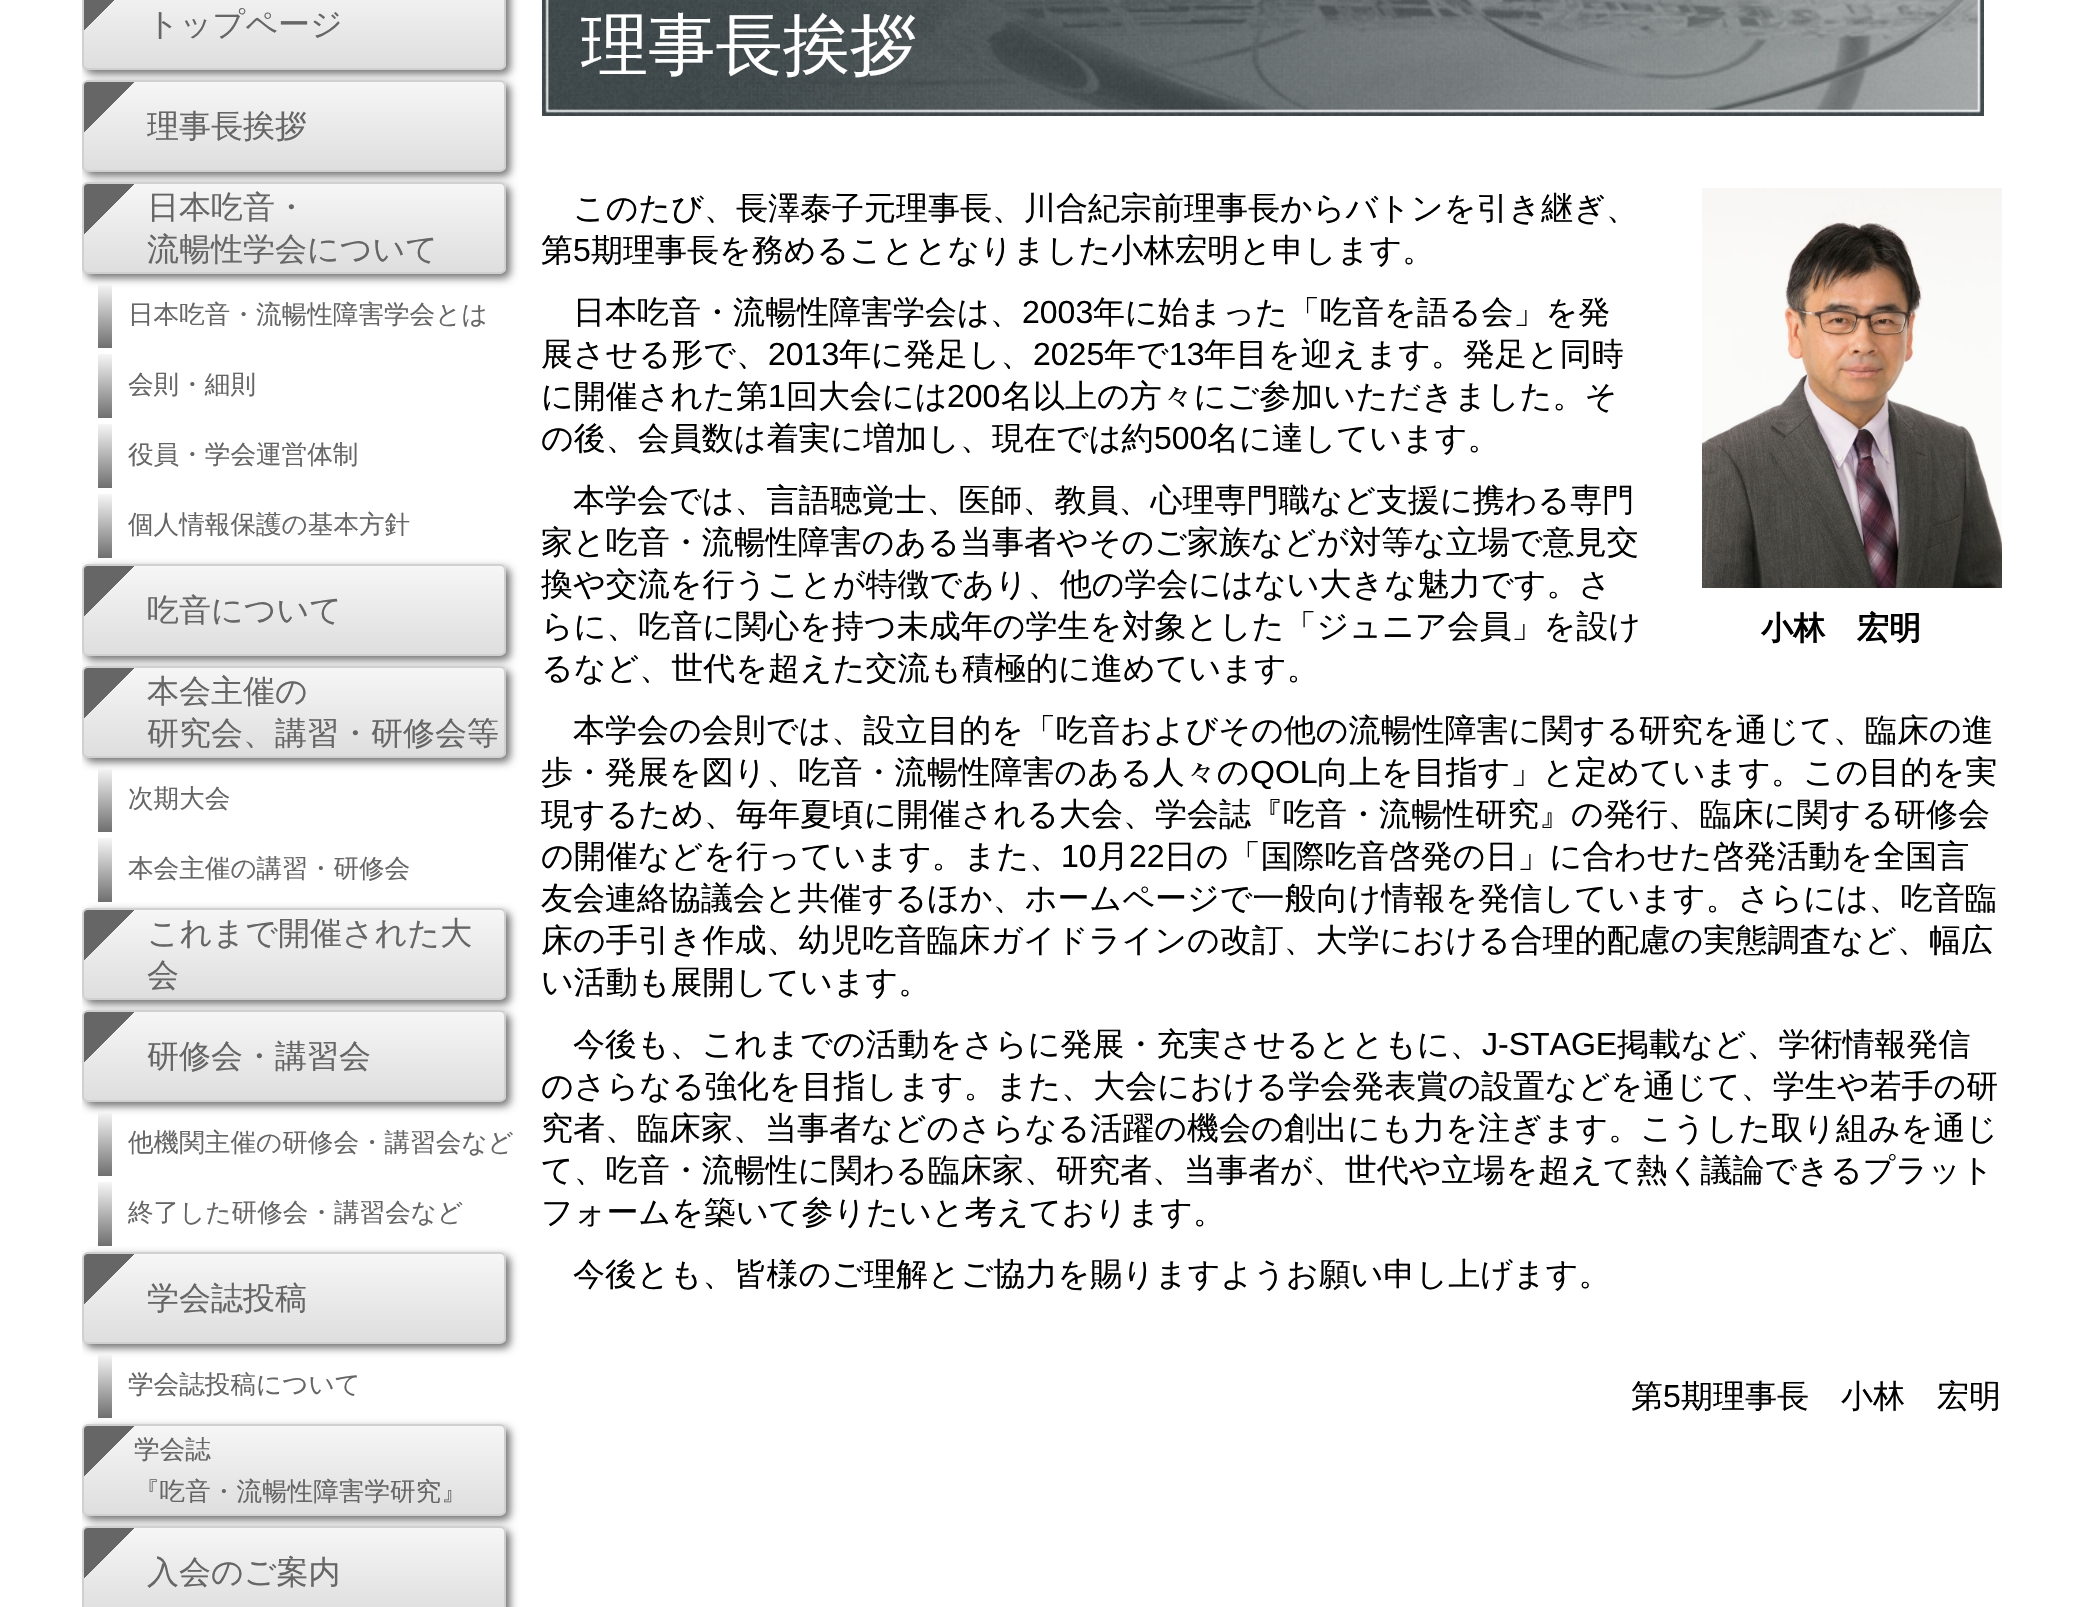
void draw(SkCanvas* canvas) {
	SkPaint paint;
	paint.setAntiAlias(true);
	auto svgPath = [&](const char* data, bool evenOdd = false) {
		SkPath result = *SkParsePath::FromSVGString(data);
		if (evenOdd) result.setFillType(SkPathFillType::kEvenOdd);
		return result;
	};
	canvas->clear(0xffffffff);
	canvas->save();
	canvas->clipRect(SkRect::MakeXYWH(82, 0, 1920, 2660));
	paint.setColor(0xff6f6f6f);
	paint.setMaskFilter(SkMaskFilter::MakeBlur(kNormal_SkBlurStyle, 4));
	canvas->drawRoundRect(SkRect::MakeXYWH(86, -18, 424, 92), 6, 6, paint);
	paint.setMaskFilter(nullptr);
	canvas->restore();
	canvas->save();
	canvas->clipPath(svgPath("M88-22H500C503.5-22 506-19.5 506-16V64C506 67.5 503.5 70 500 70H88C84.5 70 82 67.5 82 64V-16C82-19.5 84.5-22 88-22Z"), true);
	{
		const SkColor colors[] = {0xffdedede, 0xfff6f6f6};
		const float stops[] = {0, 1};
		const SkPoint ends[] = {{294, 68}, {294, -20}};
		paint.setShader(SkGradientShader::MakeLinear(ends, colors, stops, 2, SkTileMode::kClamp));
		paint.setAlpha(255);
	}
	canvas->drawRect(SkRect::MakeXYWH(82, 0, 424, 68), paint);
	canvas->restore();
	{
		const SkColor colors[] = {0xff666666, 0x00666666};
		const float stops[] = {0.1, 0.1};
		const SkPoint ends[] = {{167, -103}, {421, 151}};
		paint.setShader(SkGradientShader::MakeLinear(ends, colors, stops, 2, SkTileMode::kClamp));
		paint.setAlpha(255);
	}
	canvas->drawRect(SkRect::MakeXYWH(84, 0, 30, 30), paint);
	canvas->save();
	canvas->clipPath(svgPath("M88-22H500C503.5-22 506-19.5 506-16V64C506 67.5 503.5 70 500 70H88C84.5 70 82 67.5 82 64V-16C82-19.5 84.5-22 88-22Z"), true);
	{
		const SkColor colors[] = {0xff666666, 0xffa8a8a8};
		const float stops[] = {0.1, 0.1};
		const SkPoint ends[] = {{587, -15}, {841, 239}};
		paint.setShader(SkGradientShader::MakeLinear(ends, colors, stops, 2, SkTileMode::kClamp));
		paint.setAlpha(255);
	}
	canvas->drawRect(SkRect::MakeXYWH(504, 68, 2, 1), paint);
	canvas->restore();
	paint.setStroke(true);
	paint.setStrokeWidth(2);
	paint.setShader(nullptr);
	paint.setColor(0xffd0d0d0);
	canvas->drawRoundRect(SkRect::MakeXYWH(83, -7, 422, 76), 5, 5, paint);
	SkFont f1(fontMgr->matchFamilyStyle("WenQuanYi Zen Hei", SkFontStyle(500, SkFontStyle::kNormal_Width, SkFontStyle::kUpright_Slant)), 32);
	f1.setSubpixel(true);
	paint.setStroke(false);
	paint.setColor(0xff666666);
	canvas->drawString("トップページ", 147, 35, f1, paint);
	canvas->save();
	canvas->clipRect(SkRect::MakeXYWH(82, 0, 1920, 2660));
	paint.setColor(0xff6f6f6f);
	paint.setMaskFilter(SkMaskFilter::MakeBlur(kNormal_SkBlurStyle, 4));
	canvas->drawRoundRect(SkRect::MakeXYWH(86, 84, 424, 92), 6, 6, paint);
	paint.setMaskFilter(nullptr);
	canvas->restore();
	canvas->save();
	canvas->clipPath(svgPath("M88 80H500C503.5 80 506 82.5 506 86V166C506 169.5 503.5 172 500 172H88C84.5 172 82 169.5 82 166V86C82 82.5 84.5 80 88 80Z"), true);
	{
		const SkColor colors[] = {0xffdedede, 0xfff6f6f6};
		const float stops[] = {0, 1};
		const SkPoint ends[] = {{294, 170}, {294, 82}};
		paint.setShader(SkGradientShader::MakeLinear(ends, colors, stops, 2, SkTileMode::kClamp));
		paint.setAlpha(255);
	}
	canvas->drawRect(SkRect::MakeXYWH(82, 82, 424, 88), paint);
	canvas->restore();
	{
		const SkColor colors[] = {0xff666666, 0x00666666};
		const float stops[] = {0.1, 0.1};
		const SkPoint ends[] = {{167, -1}, {421, 253}};
		paint.setShader(SkGradientShader::MakeLinear(ends, colors, stops, 2, SkTileMode::kClamp));
		paint.setAlpha(255);
	}
	canvas->drawRect(SkRect::MakeXYWH(84, 82, 50, 50), paint);
	canvas->save();
	canvas->clipPath(svgPath("M88 80H500C503.5 80 506 82.5 506 86V166C506 169.5 503.5 172 500 172H88C84.5 172 82 169.5 82 166V86C82 82.5 84.5 80 88 80Z"), true);
	{
		const SkColor colors[] = {0xff666666, 0xffa8a8a8};
		const float stops[] = {0.1, 0.1};
		const SkPoint ends[] = {{587, 87}, {841, 341}};
		paint.setShader(SkGradientShader::MakeLinear(ends, colors, stops, 2, SkTileMode::kClamp));
		paint.setAlpha(255);
	}
	canvas->drawRect(SkRect::MakeXYWH(504, 170, 2, 1), paint);
	canvas->restore();
	paint.setStroke(true);
	paint.setShader(nullptr);
	paint.setColor(0xffd0d0d0);
	canvas->drawRoundRect(SkRect::MakeXYWH(83, 81, 422, 90), 5, 5, paint);
	paint.setStroke(false);
	paint.setColor(0xff666666);
	canvas->drawString("理事長挨拶", 147, 137, f1, paint);
	canvas->save();
	canvas->clipRect(SkRect::MakeXYWH(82, 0, 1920, 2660));
	paint.setColor(0xff6f6f6f);
	paint.setMaskFilter(SkMaskFilter::MakeBlur(kNormal_SkBlurStyle, 4));
	canvas->drawRoundRect(SkRect::MakeXYWH(86, 186, 424, 92), 6, 6, paint);
	paint.setMaskFilter(nullptr);
	canvas->restore();
	canvas->save();
	canvas->clipPath(svgPath("M88 182H500C503.5 182 506 184.5 506 188V268C506 271.5 503.5 274 500 274H88C84.5 274 82 271.5 82 268V188C82 184.5 84.5 182 88 182Z"), true);
	{
		const SkColor colors[] = {0xffdedede, 0xfff6f6f6};
		const float stops[] = {0, 1};
		const SkPoint ends[] = {{294, 272}, {294, 184}};
		paint.setShader(SkGradientShader::MakeLinear(ends, colors, stops, 2, SkTileMode::kClamp));
		paint.setAlpha(255);
	}
	canvas->drawRect(SkRect::MakeXYWH(82, 184, 424, 88), paint);
	canvas->restore();
	{
		const SkColor colors[] = {0xff666666, 0x00666666};
		const float stops[] = {0.1, 0.1};
		const SkPoint ends[] = {{167, 101}, {421, 355}};
		paint.setShader(SkGradientShader::MakeLinear(ends, colors, stops, 2, SkTileMode::kClamp));
		paint.setAlpha(255);
	}
	canvas->drawRect(SkRect::MakeXYWH(84, 184, 50, 50), paint);
	canvas->save();
	canvas->clipPath(svgPath("M88 182H500C503.5 182 506 184.5 506 188V268C506 271.5 503.5 274 500 274H88C84.5 274 82 271.5 82 268V188C82 184.5 84.5 182 88 182Z"), true);
	{
		const SkColor colors[] = {0xff666666, 0xffa8a8a8};
		const float stops[] = {0.1, 0.1};
		const SkPoint ends[] = {{587, 189}, {841, 443}};
		paint.setShader(SkGradientShader::MakeLinear(ends, colors, stops, 2, SkTileMode::kClamp));
		paint.setAlpha(255);
	}
	canvas->drawRect(SkRect::MakeXYWH(504, 272, 2, 1), paint);
	canvas->restore();
	paint.setStroke(true);
	paint.setShader(nullptr);
	paint.setColor(0xffd0d0d0);
	canvas->drawRoundRect(SkRect::MakeXYWH(83, 183, 422, 90), 5, 5, paint);
	paint.setStroke(false);
	paint.setColor(0xff666666);
	canvas->drawString("日本吃音・", 147, 218, f1, paint);
	canvas->drawString("流暢性学会について", 147, 260, f1, paint);
	{
		const SkColor colors[] = {0xff6f6f6f, 0xfff6f6f6};
		const float stops[] = {0, 1};
		const SkPoint ends[] = {{105, 348}, {105, 284}};
		paint.setShader(SkGradientShader::MakeLinear(ends, colors, stops, 2, SkTileMode::kClamp));
		paint.setAlpha(255);
	}
	canvas->drawRect(SkRect::MakeXYWH(98, 284, 14, 64), paint);
	SkFont f2(fontMgr->matchFamilyStyle("WenQuanYi Zen Hei", SkFontStyle(500, SkFontStyle::kNormal_Width, SkFontStyle::kUpright_Slant)), 25.6);
	f2.setSubpixel(true);
	paint.setShader(nullptr);
	paint.setColor(0xff666666);
	canvas->drawString("日本吃音・流暢性障害学会とは", 128, 323, f2, paint);
	{
		const SkColor colors[] = {0xff6f6f6f, 0xfff6f6f6};
		const float stops[] = {0, 1};
		const SkPoint ends[] = {{105, 418}, {105, 354}};
		paint.setShader(SkGradientShader::MakeLinear(ends, colors, stops, 2, SkTileMode::kClamp));
		paint.setAlpha(255);
	}
	canvas->drawRect(SkRect::MakeXYWH(98, 354, 14, 64), paint);
	paint.setShader(nullptr);
	paint.setColor(0xff666666);
	canvas->drawString("会則・細則", 128, 393, f2, paint);
	{
		const SkColor colors[] = {0xff6f6f6f, 0xfff6f6f6};
		const float stops[] = {0, 1};
		const SkPoint ends[] = {{105, 488}, {105, 424}};
		paint.setShader(SkGradientShader::MakeLinear(ends, colors, stops, 2, SkTileMode::kClamp));
		paint.setAlpha(255);
	}
	canvas->drawRect(SkRect::MakeXYWH(98, 424, 14, 64), paint);
	paint.setShader(nullptr);
	paint.setColor(0xff666666);
	canvas->drawString("役員・学会運営体制", 128, 463, f2, paint);
	{
		const SkColor colors[] = {0xff6f6f6f, 0xfff6f6f6};
		const float stops[] = {0, 1};
		const SkPoint ends[] = {{105, 558}, {105, 494}};
		paint.setShader(SkGradientShader::MakeLinear(ends, colors, stops, 2, SkTileMode::kClamp));
		paint.setAlpha(255);
	}
	canvas->drawRect(SkRect::MakeXYWH(98, 494, 14, 64), paint);
	paint.setShader(nullptr);
	paint.setColor(0xff666666);
	canvas->drawString("個人情報保護の基本方針", 128, 533, f2, paint);
	canvas->save();
	canvas->clipRect(SkRect::MakeXYWH(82, 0, 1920, 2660));
	paint.setColor(0xff6f6f6f);
	paint.setMaskFilter(SkMaskFilter::MakeBlur(kNormal_SkBlurStyle, 4));
	canvas->drawRoundRect(SkRect::MakeXYWH(86, 568, 424, 92), 6, 6, paint);
	paint.setMaskFilter(nullptr);
	canvas->restore();
	canvas->save();
	canvas->clipPath(svgPath("M88 564H500C503.5 564 506 566.5 506 570V650C506 653.5 503.5 656 500 656H88C84.5 656 82 653.5 82 650V570C82 566.5 84.5 564 88 564Z"), true);
	{
		const SkColor colors[] = {0xffdedede, 0xfff6f6f6};
		const float stops[] = {0, 1};
		const SkPoint ends[] = {{294, 654}, {294, 566}};
		paint.setShader(SkGradientShader::MakeLinear(ends, colors, stops, 2, SkTileMode::kClamp));
		paint.setAlpha(255);
	}
	canvas->drawRect(SkRect::MakeXYWH(82, 566, 424, 88), paint);
	canvas->restore();
	{
		const SkColor colors[] = {0xff666666, 0x00666666};
		const float stops[] = {0.1, 0.1};
		const SkPoint ends[] = {{167, 483}, {421, 737}};
		paint.setShader(SkGradientShader::MakeLinear(ends, colors, stops, 2, SkTileMode::kClamp));
		paint.setAlpha(255);
	}
	canvas->drawRect(SkRect::MakeXYWH(84, 566, 50, 50), paint);
	canvas->save();
	canvas->clipPath(svgPath("M88 564H500C503.5 564 506 566.5 506 570V650C506 653.5 503.5 656 500 656H88C84.5 656 82 653.5 82 650V570C82 566.5 84.5 564 88 564Z"), true);
	{
		const SkColor colors[] = {0xff666666, 0xffa8a8a8};
		const float stops[] = {0.1, 0.1};
		const SkPoint ends[] = {{587, 571}, {841, 825}};
		paint.setShader(SkGradientShader::MakeLinear(ends, colors, stops, 2, SkTileMode::kClamp));
		paint.setAlpha(255);
	}
	canvas->drawRect(SkRect::MakeXYWH(504, 654, 2, 1), paint);
	canvas->restore();
	paint.setStroke(true);
	paint.setShader(nullptr);
	paint.setColor(0xffd0d0d0);
	canvas->drawRoundRect(SkRect::MakeXYWH(83, 565, 422, 90), 5, 5, paint);
	paint.setStroke(false);
	paint.setColor(0xff666666);
	canvas->drawString("吃音について", 147, 621, f1, paint);
	canvas->save();
	canvas->clipRect(SkRect::MakeXYWH(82, 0, 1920, 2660));
	paint.setColor(0xff6f6f6f);
	paint.setMaskFilter(SkMaskFilter::MakeBlur(kNormal_SkBlurStyle, 4));
	canvas->drawRoundRect(SkRect::MakeXYWH(86, 670, 424, 92), 6, 6, paint);
	paint.setMaskFilter(nullptr);
	canvas->restore();
	canvas->save();
	canvas->clipPath(svgPath("M88 666H500C503.5 666 506 668.5 506 672V752C506 755.5 503.5 758 500 758H88C84.5 758 82 755.5 82 752V672C82 668.5 84.5 666 88 666Z"), true);
	{
		const SkColor colors[] = {0xffdedede, 0xfff6f6f6};
		const float stops[] = {0, 1};
		const SkPoint ends[] = {{294, 756}, {294, 668}};
		paint.setShader(SkGradientShader::MakeLinear(ends, colors, stops, 2, SkTileMode::kClamp));
		paint.setAlpha(255);
	}
	canvas->drawRect(SkRect::MakeXYWH(82, 668, 424, 88), paint);
	canvas->restore();
	{
		const SkColor colors[] = {0xff666666, 0x00666666};
		const float stops[] = {0.1, 0.1};
		const SkPoint ends[] = {{167, 585}, {421, 839}};
		paint.setShader(SkGradientShader::MakeLinear(ends, colors, stops, 2, SkTileMode::kClamp));
		paint.setAlpha(255);
	}
	canvas->drawRect(SkRect::MakeXYWH(84, 668, 50, 50), paint);
	canvas->save();
	canvas->clipPath(svgPath("M88 666H500C503.5 666 506 668.5 506 672V752C506 755.5 503.5 758 500 758H88C84.5 758 82 755.5 82 752V672C82 668.5 84.5 666 88 666Z"), true);
	{
		const SkColor colors[] = {0xff666666, 0xffa8a8a8};
		const float stops[] = {0.1, 0.1};
		const SkPoint ends[] = {{587, 673}, {841, 927}};
		paint.setShader(SkGradientShader::MakeLinear(ends, colors, stops, 2, SkTileMode::kClamp));
		paint.setAlpha(255);
	}
	canvas->drawRect(SkRect::MakeXYWH(504, 756, 2, 1), paint);
	canvas->restore();
	paint.setStroke(true);
	paint.setShader(nullptr);
	paint.setColor(0xffd0d0d0);
	canvas->drawRoundRect(SkRect::MakeXYWH(83, 667, 422, 90), 5, 5, paint);
	paint.setStroke(false);
	paint.setColor(0xff666666);
	canvas->drawString("本会主催の", 147, 702, f1, paint);
	canvas->drawString("研究会、講習・研修会等", 147, 744, f1, paint);
	{
		const SkColor colors[] = {0xff6f6f6f, 0xfff6f6f6};
		const float stops[] = {0, 1};
		const SkPoint ends[] = {{105, 832}, {105, 768}};
		paint.setShader(SkGradientShader::MakeLinear(ends, colors, stops, 2, SkTileMode::kClamp));
		paint.setAlpha(255);
	}
	canvas->drawRect(SkRect::MakeXYWH(98, 768, 14, 64), paint);
	paint.setShader(nullptr);
	paint.setColor(0xff666666);
	canvas->drawString("次期大会", 128, 807, f2, paint);
	{
		const SkColor colors[] = {0xff6f6f6f, 0xfff6f6f6};
		const float stops[] = {0, 1};
		const SkPoint ends[] = {{105, 902}, {105, 838}};
		paint.setShader(SkGradientShader::MakeLinear(ends, colors, stops, 2, SkTileMode::kClamp));
		paint.setAlpha(255);
	}
	canvas->drawRect(SkRect::MakeXYWH(98, 838, 14, 64), paint);
	paint.setShader(nullptr);
	paint.setColor(0xff666666);
	canvas->drawString("本会主催の講習・研修会", 128, 877, f2, paint);
	canvas->save();
	canvas->clipRect(SkRect::MakeXYWH(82, 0, 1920, 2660));
	paint.setColor(0xff6f6f6f);
	paint.setMaskFilter(SkMaskFilter::MakeBlur(kNormal_SkBlurStyle, 4));
	canvas->drawRoundRect(SkRect::MakeXYWH(86, 912, 424, 92), 6, 6, paint);
	paint.setMaskFilter(nullptr);
	canvas->restore();
	canvas->save();
	canvas->clipPath(svgPath("M88 908H500C503.5 908 506 910.5 506 914V994C506 997.5 503.5 1000 500 1000H88C84.5 1000 82 997.5 82 994V914C82 910.5 84.5 908 88 908Z"), true);
	{
		const SkColor colors[] = {0xffdedede, 0xfff6f6f6};
		const float stops[] = {0, 1};
		const SkPoint ends[] = {{294, 998}, {294, 910}};
		paint.setShader(SkGradientShader::MakeLinear(ends, colors, stops, 2, SkTileMode::kClamp));
		paint.setAlpha(255);
	}
	canvas->drawRect(SkRect::MakeXYWH(82, 910, 424, 88), paint);
	canvas->restore();
	{
		const SkColor colors[] = {0xff666666, 0x00666666};
		const float stops[] = {0.1, 0.1};
		const SkPoint ends[] = {{167, 827}, {421, 1081}};
		paint.setShader(SkGradientShader::MakeLinear(ends, colors, stops, 2, SkTileMode::kClamp));
		paint.setAlpha(255);
	}
	canvas->drawRect(SkRect::MakeXYWH(84, 910, 50, 50), paint);
	canvas->save();
	canvas->clipPath(svgPath("M88 908H500C503.5 908 506 910.5 506 914V994C506 997.5 503.5 1000 500 1000H88C84.5 1000 82 997.5 82 994V914C82 910.5 84.5 908 88 908Z"), true);
	{
		const SkColor colors[] = {0xff666666, 0xffa8a8a8};
		const float stops[] = {0.1, 0.1};
		const SkPoint ends[] = {{587, 915}, {841, 1169}};
		paint.setShader(SkGradientShader::MakeLinear(ends, colors, stops, 2, SkTileMode::kClamp));
		paint.setAlpha(255);
	}
	canvas->drawRect(SkRect::MakeXYWH(504, 998, 2, 1), paint);
	canvas->restore();
	paint.setStroke(true);
	paint.setShader(nullptr);
	paint.setColor(0xffd0d0d0);
	canvas->drawRoundRect(SkRect::MakeXYWH(83, 909, 422, 90), 5, 5, paint);
	paint.setStroke(false);
	paint.setColor(0xff666666);
	canvas->drawString("これまで開催された大", 147, 944, f1, paint);
	canvas->drawString("会", 147, 986, f1, paint);
	canvas->save();
	canvas->clipRect(SkRect::MakeXYWH(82, 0, 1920, 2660));
	paint.setColor(0xff6f6f6f);
	paint.setMaskFilter(SkMaskFilter::MakeBlur(kNormal_SkBlurStyle, 4));
	canvas->drawRoundRect(SkRect::MakeXYWH(86, 1014, 424, 92), 6, 6, paint);
	paint.setMaskFilter(nullptr);
	canvas->restore();
	canvas->save();
	canvas->clipPath(svgPath("M88 1010H500C503.5 1010 506 1012.5 506 1016V1096C506 1099.5 503.5 1102 500 1102H88C84.5 1102 82 1099.5 82 1096V1016C82 1012.5 84.5 1010 88 1010Z"), true);
	{
		const SkColor colors[] = {0xffdedede, 0xfff6f6f6};
		const float stops[] = {0, 1};
		const SkPoint ends[] = {{294, 1100}, {294, 1012}};
		paint.setShader(SkGradientShader::MakeLinear(ends, colors, stops, 2, SkTileMode::kClamp));
		paint.setAlpha(255);
	}
	canvas->drawRect(SkRect::MakeXYWH(82, 1012, 424, 88), paint);
	canvas->restore();
	{
		const SkColor colors[] = {0xff666666, 0x00666666};
		const float stops[] = {0.1, 0.1};
		const SkPoint ends[] = {{167, 929}, {421, 1183}};
		paint.setShader(SkGradientShader::MakeLinear(ends, colors, stops, 2, SkTileMode::kClamp));
		paint.setAlpha(255);
	}
	canvas->drawRect(SkRect::MakeXYWH(84, 1012, 50, 50), paint);
	canvas->save();
	canvas->clipPath(svgPath("M88 1010H500C503.5 1010 506 1012.5 506 1016V1096C506 1099.5 503.5 1102 500 1102H88C84.5 1102 82 1099.5 82 1096V1016C82 1012.5 84.5 1010 88 1010Z"), true);
	{
		const SkColor colors[] = {0xff666666, 0xffa8a8a8};
		const float stops[] = {0.1, 0.1};
		const SkPoint ends[] = {{587, 1017}, {841, 1271}};
		paint.setShader(SkGradientShader::MakeLinear(ends, colors, stops, 2, SkTileMode::kClamp));
		paint.setAlpha(255);
	}
	canvas->drawRect(SkRect::MakeXYWH(504, 1100, 2, 1), paint);
	canvas->restore();
	paint.setStroke(true);
	paint.setShader(nullptr);
	paint.setColor(0xffd0d0d0);
	canvas->drawRoundRect(SkRect::MakeXYWH(83, 1011, 422, 90), 5, 5, paint);
	paint.setStroke(false);
	paint.setColor(0xff666666);
	canvas->drawString("研修会・講習会", 147, 1067, f1, paint);
	{
		const SkColor colors[] = {0xff6f6f6f, 0xfff6f6f6};
		const float stops[] = {0, 1};
		const SkPoint ends[] = {{105, 1176}, {105, 1112}};
		paint.setShader(SkGradientShader::MakeLinear(ends, colors, stops, 2, SkTileMode::kClamp));
		paint.setAlpha(255);
	}
	canvas->drawRect(SkRect::MakeXYWH(98, 1112, 14, 64), paint);
	paint.setShader(nullptr);
	paint.setColor(0xff666666);
	canvas->drawString("他機関主催の研修会・講習会など", 128, 1151, f2, paint);
	{
		const SkColor colors[] = {0xff6f6f6f, 0xfff6f6f6};
		const float stops[] = {0, 1};
		const SkPoint ends[] = {{105, 1246}, {105, 1182}};
		paint.setShader(SkGradientShader::MakeLinear(ends, colors, stops, 2, SkTileMode::kClamp));
		paint.setAlpha(255);
	}
	canvas->drawRect(SkRect::MakeXYWH(98, 1182, 14, 64), paint);
	paint.setShader(nullptr);
	paint.setColor(0xff666666);
	canvas->drawString("終了した研修会・講習会など", 128, 1221, f2, paint);
	canvas->save();
	canvas->clipRect(SkRect::MakeXYWH(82, 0, 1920, 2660));
	paint.setColor(0xff6f6f6f);
	paint.setMaskFilter(SkMaskFilter::MakeBlur(kNormal_SkBlurStyle, 4));
	canvas->drawRoundRect(SkRect::MakeXYWH(86, 1256, 424, 92), 6, 6, paint);
	paint.setMaskFilter(nullptr);
	canvas->restore();
	canvas->save();
	canvas->clipPath(svgPath("M88 1252H500C503.5 1252 506 1254.5 506 1258V1338C506 1341.5 503.5 1344 500 1344H88C84.5 1344 82 1341.5 82 1338V1258C82 1254.5 84.5 1252 88 1252Z"), true);
	{
		const SkColor colors[] = {0xffdedede, 0xfff6f6f6};
		const float stops[] = {0, 1};
		const SkPoint ends[] = {{294, 1342}, {294, 1254}};
		paint.setShader(SkGradientShader::MakeLinear(ends, colors, stops, 2, SkTileMode::kClamp));
		paint.setAlpha(255);
	}
	canvas->drawRect(SkRect::MakeXYWH(82, 1254, 424, 88), paint);
	canvas->restore();
	{
		const SkColor colors[] = {0xff666666, 0x00666666};
		const float stops[] = {0.1, 0.1};
		const SkPoint ends[] = {{167, 1171}, {421, 1425}};
		paint.setShader(SkGradientShader::MakeLinear(ends, colors, stops, 2, SkTileMode::kClamp));
		paint.setAlpha(255);
	}
	canvas->drawRect(SkRect::MakeXYWH(84, 1254, 50, 50), paint);
	canvas->save();
	canvas->clipPath(svgPath("M88 1252H500C503.5 1252 506 1254.5 506 1258V1338C506 1341.5 503.5 1344 500 1344H88C84.5 1344 82 1341.5 82 1338V1258C82 1254.5 84.5 1252 88 1252Z"), true);
	{
		const SkColor colors[] = {0xff666666, 0xffa8a8a8};
		const float stops[] = {0.1, 0.1};
		const SkPoint ends[] = {{587, 1259}, {841, 1513}};
		paint.setShader(SkGradientShader::MakeLinear(ends, colors, stops, 2, SkTileMode::kClamp));
		paint.setAlpha(255);
	}
	canvas->drawRect(SkRect::MakeXYWH(504, 1342, 2, 1), paint);
	canvas->restore();
	paint.setStroke(true);
	paint.setShader(nullptr);
	paint.setColor(0xffd0d0d0);
	canvas->drawRoundRect(SkRect::MakeXYWH(83, 1253, 422, 90), 5, 5, paint);
	paint.setStroke(false);
	paint.setColor(0xff666666);
	canvas->drawString("学会誌投稿", 147, 1309, f1, paint);
	{
		const SkColor colors[] = {0xff6f6f6f, 0xfff6f6f6};
		const float stops[] = {0, 1};
		const SkPoint ends[] = {{105, 1418}, {105, 1354}};
		paint.setShader(SkGradientShader::MakeLinear(ends, colors, stops, 2, SkTileMode::kClamp));
		paint.setAlpha(255);
	}
	canvas->drawRect(SkRect::MakeXYWH(98, 1354, 14, 64), paint);
	paint.setShader(nullptr);
	paint.setColor(0xff666666);
	canvas->drawString("学会誌投稿について", 128, 1393, f2, paint);
	canvas->save();
	canvas->clipRect(SkRect::MakeXYWH(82, 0, 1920, 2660));
	paint.setColor(0xff6f6f6f);
	paint.setMaskFilter(SkMaskFilter::MakeBlur(kNormal_SkBlurStyle, 4));
	canvas->drawRoundRect(SkRect::MakeXYWH(86, 1428, 424, 92), 6, 6, paint);
	paint.setMaskFilter(nullptr);
	canvas->restore();
	canvas->save();
	canvas->clipPath(svgPath("M88 1424H500C503.5 1424 506 1426.5 506 1430V1510C506 1513.5 503.5 1516 500 1516H88C84.5 1516 82 1513.5 82 1510V1430C82 1426.5 84.5 1424 88 1424Z"), true);
	{
		const SkColor colors[] = {0xffdedede, 0xfff6f6f6};
		const float stops[] = {0, 1};
		const SkPoint ends[] = {{294, 1514}, {294, 1426}};
		paint.setShader(SkGradientShader::MakeLinear(ends, colors, stops, 2, SkTileMode::kClamp));
		paint.setAlpha(255);
	}
	canvas->drawRect(SkRect::MakeXYWH(82, 1426, 424, 88), paint);
	canvas->restore();
	{
		const SkColor colors[] = {0xff666666, 0x00666666};
		const float stops[] = {0.1, 0.1};
		const SkPoint ends[] = {{167, 1343}, {421, 1597}};
		paint.setShader(SkGradientShader::MakeLinear(ends, colors, stops, 2, SkTileMode::kClamp));
		paint.setAlpha(255);
	}
	canvas->drawRect(SkRect::MakeXYWH(84, 1426, 50, 50), paint);
	canvas->save();
	canvas->clipPath(svgPath("M88 1424H500C503.5 1424 506 1426.5 506 1430V1510C506 1513.5 503.5 1516 500 1516H88C84.5 1516 82 1513.5 82 1510V1430C82 1426.5 84.5 1424 88 1424Z"), true);
	{
		const SkColor colors[] = {0xff666666, 0xffa8a8a8};
		const float stops[] = {0.1, 0.1};
		const SkPoint ends[] = {{587, 1431}, {841, 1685}};
		paint.setShader(SkGradientShader::MakeLinear(ends, colors, stops, 2, SkTileMode::kClamp));
		paint.setAlpha(255);
	}
	canvas->drawRect(SkRect::MakeXYWH(504, 1514, 2, 1), paint);
	canvas->restore();
	paint.setStroke(true);
	paint.setShader(nullptr);
	paint.setColor(0xffd0d0d0);
	canvas->drawRoundRect(SkRect::MakeXYWH(83, 1425, 422, 90), 5, 5, paint);
	paint.setStroke(false);
	paint.setColor(0xff666666);
	canvas->drawString("学会誌", 134, 1458, f2, paint);
	canvas->drawString("『吃音・流暢性障害学研究』", 134, 1500, f2, paint);
	canvas->save();
	canvas->clipRect(SkRect::MakeXYWH(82, 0, 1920, 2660));
	paint.setColor(0xff6f6f6f);
	paint.setMaskFilter(SkMaskFilter::MakeBlur(kNormal_SkBlurStyle, 4));
	canvas->drawRoundRect(SkRect::MakeXYWH(86, 1530, 424, 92), 6, 6, paint);
	paint.setMaskFilter(nullptr);
	canvas->restore();
	canvas->save();
	canvas->clipPath(svgPath("M88 1526H500C503.5 1526 506 1528.5 506 1532V1612C506 1615.5 503.5 1618 500 1618H88C84.5 1618 82 1615.5 82 1612V1532C82 1528.5 84.5 1526 88 1526Z"), true);
	{
		const SkColor colors[] = {0xffdedede, 0xfff6f6f6};
		const float stops[] = {0, 1};
		const SkPoint ends[] = {{294, 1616}, {294, 1528}};
		paint.setShader(SkGradientShader::MakeLinear(ends, colors, stops, 2, SkTileMode::kClamp));
		paint.setAlpha(255);
	}
	canvas->drawRect(SkRect::MakeXYWH(82, 1528, 424, 79), paint);
	canvas->restore();
	{
		const SkColor colors[] = {0xff666666, 0x00666666};
		const float stops[] = {0.1, 0.1};
		const SkPoint ends[] = {{167, 1445}, {421, 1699}};
		paint.setShader(SkGradientShader::MakeLinear(ends, colors, stops, 2, SkTileMode::kClamp));
		paint.setAlpha(255);
	}
	canvas->drawRect(SkRect::MakeXYWH(84, 1528, 50, 50), paint);
	paint.setStroke(true);
	paint.setShader(nullptr);
	paint.setColor(0xffd0d0d0);
	canvas->drawRoundRect(SkRect::MakeXYWH(83, 1527, 422, 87), 5, 5, paint);
	paint.setStroke(false);
	paint.setColor(0xff666666);
	canvas->drawString("入会のご案内", 147, 1583, f1, paint);
	canvas->drawImageRect(SkImages::DeferredFromEncodedData(SkData::MakeFromFileName("img1.png")), SkRect::MakeXYWH(542, 0, 1442, 116), SkSamplingOptions());
	SkFont f3(fontMgr->matchFamilyStyle("WenQuanYi Zen Hei", SkFontStyle(500, SkFontStyle::kNormal_Width, SkFontStyle::kUpright_Slant)), 67.25);
	f3.setSubpixel(true);
	paint.setColor(0xffffffff);
	canvas->drawString("理事長挨拶", 581, 68, f3, paint);
	paint.setColor(0xff000000);
	canvas->drawString("このたび、長澤泰子元理事長、川合紀宗前理事長からバトンを引き継ぎ、", 573, 219, f1, paint);
	canvas->drawString("第", 541, 261, f1, paint);
	SkFont f4(fontMgr->matchFamilyStyle("Liberation Sans", SkFontStyle::Normal()), 32);
	f4.setSubpixel(true);
	canvas->drawString("5", 573, 261, f4, paint);
	canvas->drawString("期理事長を務めることとなりました小林宏明と申します。", 591, 261, f1, paint);
	canvas->drawString("日本吃音・流暢性障害学会は、", 573, 323, f1, paint);
	canvas->drawString("2003", 1022, 323, f4, paint);
	canvas->drawString("年に始まった「吃音を語る会」を発", 1093, 323, f1, paint);
	canvas->drawString("展させる形で、", 541, 365, f1, paint);
	canvas->drawString("2013", 768, 365, f4, paint);
	canvas->drawString("年に発足し、", 839, 365, f1, paint);
	canvas->drawString("2025", 1033, 365, f4, paint);
	canvas->drawString("年で", 1104, 365, f1, paint);
	canvas->drawString("13", 1169, 365, f4, paint);
	canvas->drawString("年目を迎えます。発足と同時", 1204, 365, f1, paint);
	canvas->drawString("に開催された第", 541, 407, f1, paint);
	canvas->drawString("1", 768, 407, f4, paint);
	canvas->drawString("回大会には", 786, 407, f1, paint);
	canvas->drawString("200", 947, 407, f4, paint);
	canvas->drawString("名以上の方々にご参加いただきました。そ", 1001, 407, f1, paint);
	canvas->drawString("の後、会員数は着実に増加し、現在では約", 541, 449, f1, paint);
	canvas->drawString("500", 1154, 449, f4, paint);
	canvas->drawString("名に達しています。", 1207, 449, f1, paint);
	canvas->drawString("本学会では、言語聴覚士、医師、教員、心理専門職など支援に携わる専門", 573, 511, f1, paint);
	canvas->drawString("家と吃音・流暢性障害のある当事者やそのご家族などが対等な立場で意見交", 541, 553, f1, paint);
	canvas->drawString("換や交流を行うことが特徴であり、他の学会にはない大きな魅力です。さ", 541, 595, f1, paint);
	canvas->drawString("らに、吃音に関心を持つ未成年の学生を対象とした「ジュニア会員」を設け", 541, 637, f1, paint);
	canvas->drawString("るなど、世代を超えた交流も積極的に進めています。", 541, 679, f1, paint);
	canvas->drawImageRect(SkImages::DeferredFromEncodedData(SkData::MakeFromFileName("img2.png")), SkRect::MakeXYWH(1702, 188, 300, 400), SkSamplingOptions());
	SkFont f5(fontMgr->matchFamilyStyle("WenQuanYi Zen Hei", SkFontStyle::Bold()), 32);
	f5.setSubpixel(true);
	canvas->drawString("小林　宏明", 1761, 639, f5, paint);
	canvas->drawString("本学会の会則では、設立目的を「吃音およびその他の流暢性障害に関する研究を通じて、臨床の進", 573, 741, f1, paint);
	canvas->drawString("歩・発展を図り、吃音・流暢性障害のある人々の", 541, 783, f1, paint);
	canvas->drawString("QOL", 1250, 783, f4, paint);
	canvas->drawString("向上を目指す」と定めています。この目的を実", 1317, 783, f1, paint);
	canvas->drawString("現するため、毎年夏頃に開催される大会、学会誌『吃音・流暢性研究』の発行、臨床に関する研修会", 541, 825, f1, paint);
	canvas->drawString("の開催などを行っています。また、", 541, 867, f1, paint);
	canvas->drawString("10", 1061, 867, f4, paint);
	canvas->drawString("月", 1097, 867, f1, paint);
	canvas->drawString("22", 1129, 867, f4, paint);
	canvas->drawString("日の「国際吃音啓発の日」に合わせた啓発活動を全国言", 1164, 867, f1, paint);
	canvas->drawString("友会連絡協議会と共催するほか、ホームページで一般向け情報を発信しています。さらには、吃音臨", 541, 909, f1, paint);
	canvas->drawString("床の手引き作成、幼児吃音臨床ガイドラインの改訂、大学における合理的配慮の実態調査など、幅広", 541, 951, f1, paint);
	canvas->drawString("い活動も展開しています。", 541, 993, f1, paint);
	canvas->drawString("今後も、これまでの活動をさらに発展・充実させるとともに、", 573, 1055, f1, paint);
	canvas->drawString("J-STAGE", 1482, 1055, f4, paint);
	canvas->drawString("掲載など、学術情報発信", 1617, 1055, f1, paint);
	canvas->drawString("のさらなる強化を目指します。また、大会における学会発表賞の設置などを通じて、学生や若手の研", 541, 1097, f1, paint);
	canvas->drawString("究者、臨床家、当事者などのさらなる活躍の機会の創出にも力を注ぎます。こうした取り組みを通じ", 541, 1139, f1, paint);
	canvas->drawString("て、吃音・流暢性に関わる臨床家、研究者、当事者が、世代や立場を超えて熱く議論できるプラット", 541, 1181, f1, paint);
	canvas->drawString("フォームを築いて参りたいと考えております。", 541, 1223, f1, paint);
	canvas->drawString("今後とも、皆様のご理解とご協力を賜りますようお願い申し上げます。", 573, 1285, f1, paint);
	canvas->drawString("第", 1631, 1407, f1, paint);
	canvas->drawString("5", 1663, 1407, f4, paint);
	canvas->drawString("期理事長　小林　宏明", 1681, 1407, f1, paint);
}
